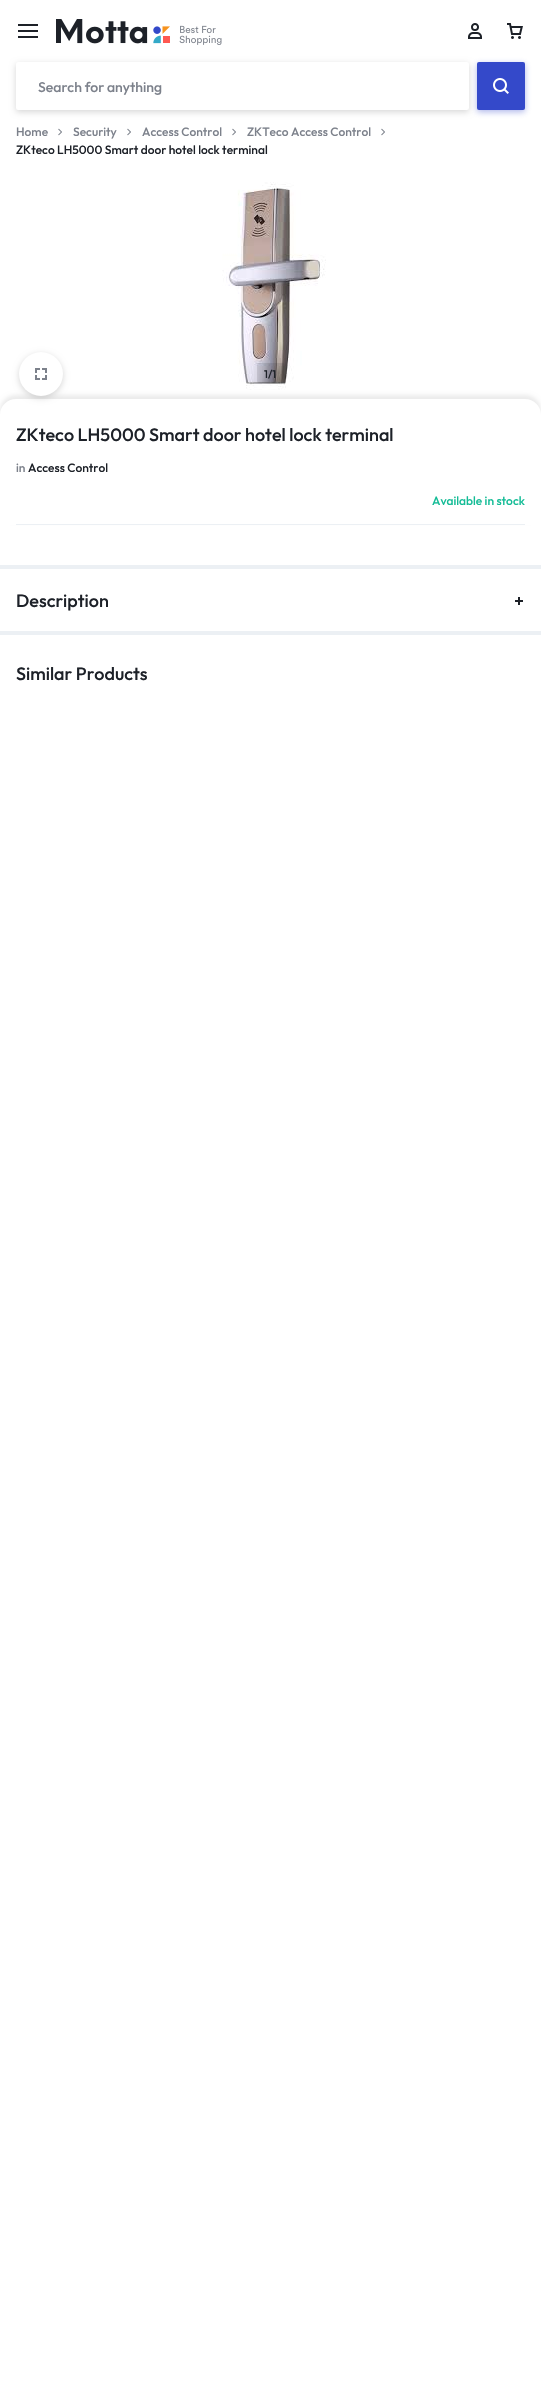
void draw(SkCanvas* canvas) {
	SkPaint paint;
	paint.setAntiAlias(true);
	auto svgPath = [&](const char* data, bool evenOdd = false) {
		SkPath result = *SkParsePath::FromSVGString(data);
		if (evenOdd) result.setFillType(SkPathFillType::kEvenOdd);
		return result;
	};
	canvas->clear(0xffffffff);
	paint.setColor(0xff1d2128);
	canvas->drawRect(SkRect::MakeXYWH(18, 24, 20, 2), paint);
	canvas->drawRect(SkRect::MakeXYWH(18, 30, 20, 2), paint);
	canvas->drawRect(SkRect::MakeXYWH(18, 36, 20, 2), paint);
	canvas->drawImageRect(SkImages::DeferredFromEncodedData(SkData::MakeFromFileName("img1.png")), SkRect::MakeXYWH(56, 19, 166, 26), SkSamplingOptions());
	canvas->drawImageRect(SkImages::DeferredFromEncodedData(SkData::MakeFromFileName("img2.png")), SkRect::MakeXYWH(468, 23, 14, 16), SkSamplingOptions());
	canvas->drawImageRect(SkImages::DeferredFromEncodedData(SkData::MakeFromFileName("img3.png")), SkRect::MakeXYWH(507, 23, 16, 16), SkSamplingOptions());
	paint.setColor(0x663449ca);
	paint.setMaskFilter(SkMaskFilter::MakeBlur(kNormal_SkBlurStyle, 3));
	canvas->drawRoundRect(SkRect::MakeXYWH(477, 64, 48, 48), 2, 2, paint);
	paint.setMaskFilter(nullptr);
	paint.setColor(0xff3449ca);
	canvas->drawRoundRect(SkRect::MakeXYWH(477, 62, 48, 48), 2, 2, paint);
	paint.setColor(0x29000000);
	paint.setMaskFilter(SkMaskFilter::MakeBlur(kNormal_SkBlurStyle, 3));
	canvas->drawRoundRect(SkRect::MakeXYWH(16, 64, 453, 48), 2, 2, paint);
	paint.setMaskFilter(nullptr);
	paint.setColor(0xffffffff);
	canvas->drawRoundRect(SkRect::MakeXYWH(16, 62, 453, 48), 2, 2, paint);
	SkFont f1(fontMgr->matchFamilyStyle("Outfit", SkFontStyle(500, SkFontStyle::kNormal_Width, SkFontStyle::kUpright_Slant)), 14);
	f1.setSubpixel(true);
	paint.setColor(0xff7c818b);
	canvas->drawString("Search for anything", 38, 92, f1, paint);
	canvas->drawImageRect(SkImages::DeferredFromEncodedData(SkData::MakeFromFileName("img4.png")), SkRect::MakeXYWH(493, 78, 16, 16), SkSamplingOptions());
	SkFont f2(fontMgr->matchFamilyStyle("Outfit", SkFontStyle(500, SkFontStyle::kNormal_Width, SkFontStyle::kUpright_Slant)), 12);
	f2.setSubpixel(true);
	canvas->drawString("Home", 16, 136, f2, paint);
	canvas->drawImageRect(SkImages::DeferredFromEncodedData(SkData::MakeFromFileName("img5.png")), SkRect::MakeXYWH(58, 128, 4, 8), SkSamplingOptions());
	canvas->drawString("Security", 73, 136, f2, paint);
	canvas->drawImageRect(SkImages::DeferredFromEncodedData(SkData::MakeFromFileName("img5.png")), SkRect::MakeXYWH(127, 128, 4, 8), SkSamplingOptions());
	canvas->drawString("Access Control", 142, 136, f2, paint);
	canvas->drawImageRect(SkImages::DeferredFromEncodedData(SkData::MakeFromFileName("img5.png")), SkRect::MakeXYWH(232, 128, 4, 8), SkSamplingOptions());
	canvas->drawString("ZKTeco Access Control", 247, 136, f2, paint);
	canvas->drawImageRect(SkImages::DeferredFromEncodedData(SkData::MakeFromFileName("img5.png")), SkRect::MakeXYWH(381, 128, 4, 8), SkSamplingOptions());
	paint.setColor(0xff1d2128);
	canvas->drawString("ZKteco LH5000 Smart door hotel lock terminal", 16, 154, f2, paint);
	paint.setColor(0x29000000);
	paint.setMaskFilter(SkMaskFilter::MakeBlur(kNormal_SkBlurStyle, 3));
	canvas->drawRoundRect(SkRect::MakeXYWH(19, 354, 44, 44), 22, 22, paint);
	paint.setMaskFilter(nullptr);
	canvas->drawImageRect(SkImages::DeferredFromEncodedData(SkData::MakeFromFileName("img7.png")), SkRect::MakeXYWH(222, 182, 104, 208), SkSamplingOptions());
	canvas->save();
	canvas->clipPath(svgPath("M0 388H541V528H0ZM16 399H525C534 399 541 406 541 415V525H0V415C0 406 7 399 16 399Z", true), true);
	paint.setColor(0x14000000);
	paint.setMaskFilter(SkMaskFilter::MakeBlur(kNormal_SkBlurStyle, 2));
	canvas->drawRoundRect(SkRect::MakeXYWH(0, 395, 541, 126), 16, 16, paint);
	paint.setMaskFilter(nullptr);
	canvas->restore();
	paint.setColor(0xffffffff);
	canvas->drawCircle(41, 374, 22, paint);
	canvas->drawImageRect(SkImages::DeferredFromEncodedData(SkData::MakeFromFileName("img6.png")), SkRect::MakeXYWH(35, 368, 12, 12), SkSamplingOptions());
	paint.setColor(0x1f1d2128);
	canvas->drawRoundRect(SkRect::MakeXYWH(257, 363, 28, 20), 2, 2, paint);
	SkFont f3(fontMgr->matchFamilyStyle("Outfit", SkFontStyle(500, SkFontStyle::kNormal_Width, SkFontStyle::kUpright_Slant)), 11);
	f3.setSubpixel(true);
	paint.setColor(0xff1d2128);
	canvas->drawString("1/1", 264, 378, f3, paint);
	SkFont f4(fontMgr->matchFamilyStyle("Outfit", SkFontStyle(500, SkFontStyle::kNormal_Width, SkFontStyle::kUpright_Slant)), 18);
	f4.setSubpixel(true);
	canvas->drawString("ZKteco LH5000 Smart door hotel lock terminal", 16, 441, f4, paint);
	paint.setColor(0xff7c818b);
	canvas->drawString("in", 16, 472, f2, paint);
	paint.setColor(0xff1d2128);
	canvas->drawString("Access Control", 28, 472, f2, paint);
	paint.setColor(0xffecf0f4);
	canvas->drawRect(SkRect::MakeXYWH(16, 524, 509, 1), paint);
	paint.setColor(0xff13bc96);
	canvas->drawString("Available in stock", 432, 505, f2, paint);
	paint.setColor(0xffecf0f4);
	canvas->drawRect(SkRect::MakeXYWH(0, 565, 541, 4), paint);
	paint.setColor(0xff1d2128);
	canvas->drawString("Description", 16, 607, f4, paint);
	canvas->drawImageRect(SkImages::DeferredFromEncodedData(SkData::MakeFromFileName("img8.png")), SkRect::MakeXYWH(515, 597, 8, 8), SkSamplingOptions());
	paint.setColor(0xffecf0f4);
	canvas->drawRect(SkRect::MakeXYWH(0, 631, 541, 4), paint);
	paint.setColor(0xff1d2128);
	canvas->drawString("Similar Products", 16, 680, f4, paint);
}
